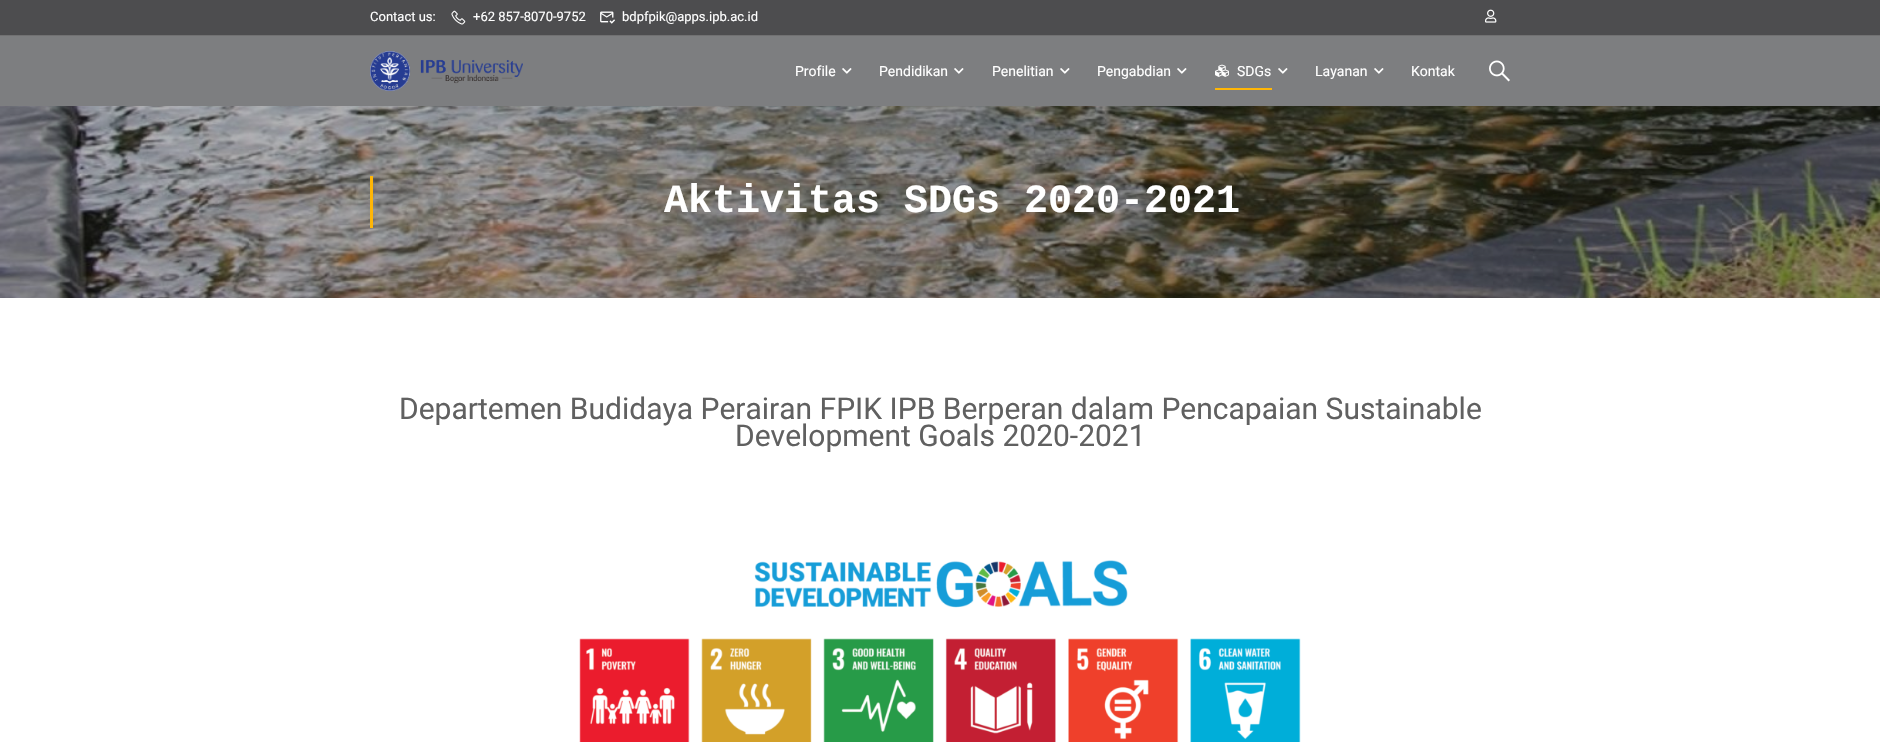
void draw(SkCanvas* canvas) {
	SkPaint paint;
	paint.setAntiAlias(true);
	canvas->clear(0xffffffff);
	paint.setColor(0xff7d7e80);
	canvas->drawRect(SkRect::MakeXYWH(0, 36, 1880, 70), paint);
	paint.setColor(0xff4d4d4f);
	canvas->drawRect(SkRect::MakeXYWH(0, 0, 1880, 35), paint);
	paint.setColor(0xff717172);
	canvas->drawRect(SkRect::MakeXYWH(0, 35, 1880, 1), paint);
	SkFont f1(fontMgr->matchFamilyStyle("Roboto", SkFontStyle::Normal()), 13);
	f1.setSubpixel(true);
	paint.setColor(0xffffffff);
	canvas->drawString("Contact us:", 370, 21, f1, paint);
	canvas->drawImageRect(SkImages::DeferredFromEncodedData(SkData::MakeFromFileName("img1.png")), SkRect::MakeXYWH(451, 10, 15, 15), SkSamplingOptions());
	canvas->drawString("+62 857-8070-9752", 473, 21, f1, paint);
	canvas->drawImageRect(SkImages::DeferredFromEncodedData(SkData::MakeFromFileName("img2.png")), SkRect::MakeXYWH(600, 11, 15, 13), SkSamplingOptions());
	canvas->drawString("bdpfpik@apps.ipb.ac.id", 622, 21, f1, paint);
	canvas->drawImageRect(SkImages::DeferredFromEncodedData(SkData::MakeFromFileName("img3.png")), SkRect::MakeXYWH(1485, 9, 12, 14), SkSamplingOptions());
	canvas->drawImageRect(SkImages::DeferredFromEncodedData(SkData::MakeFromFileName("img4.png")), SkRect::MakeXYWH(370, 51, 153, 40), SkSamplingOptions());
	SkFont f2(fontMgr->matchFamilyStyle("Roboto", SkFontStyle::Normal()), 14);
	f2.setSubpixel(true);
	canvas->drawString("Profile", 795, 76, f2, paint);
	canvas->drawImageRect(SkImages::DeferredFromEncodedData(SkData::MakeFromFileName("img5.png")), SkRect::MakeXYWH(842, 68, 10, 6), SkSamplingOptions());
	canvas->drawString("Pendidikan", 879, 76, f2, paint);
	canvas->drawImageRect(SkImages::DeferredFromEncodedData(SkData::MakeFromFileName("img5.png")), SkRect::MakeXYWH(954, 68, 10, 6), SkSamplingOptions());
	canvas->drawString("Penelitian", 992, 76, f2, paint);
	canvas->drawImageRect(SkImages::DeferredFromEncodedData(SkData::MakeFromFileName("img5.png")), SkRect::MakeXYWH(1060, 68, 10, 6), SkSamplingOptions());
	canvas->drawString("Pengabdian", 1097, 76, f2, paint);
	canvas->drawImageRect(SkImages::DeferredFromEncodedData(SkData::MakeFromFileName("img5.png")), SkRect::MakeXYWH(1177, 68, 10, 6), SkSamplingOptions());
	canvas->drawImageRect(SkImages::DeferredFromEncodedData(SkData::MakeFromFileName("img6.png")), SkRect::MakeXYWH(1215, 64, 14, 13), SkSamplingOptions());
	canvas->drawString("SDGs", 1237, 76, f2, paint);
	canvas->drawImageRect(SkImages::DeferredFromEncodedData(SkData::MakeFromFileName("img5.png")), SkRect::MakeXYWH(1278, 68, 10, 6), SkSamplingOptions());
	canvas->drawString("Layanan", 1315, 76, f2, paint);
	canvas->drawImageRect(SkImages::DeferredFromEncodedData(SkData::MakeFromFileName("img5.png")), SkRect::MakeXYWH(1374, 68, 10, 6), SkSamplingOptions());
	canvas->drawString("Kontak", 1411, 76, f2, paint);
	canvas->drawImageRect(SkImages::DeferredFromEncodedData(SkData::MakeFromFileName("img7.png")), SkRect::MakeXYWH(1489, 60, 21, 22), SkSamplingOptions());
	paint.setColor(0xffffb606);
	canvas->drawRect(SkRect::MakeXYWH(1215, 88, 57, 2), paint);
	canvas->drawImageRect(SkImages::DeferredFromEncodedData(SkData::MakeFromFileName("img8.png")), SkRect::MakeXYWH(0, 106, 1880, 192), SkSamplingOptions());
	canvas->drawRect(SkRect::MakeXYWH(370, 176, 3, 52), paint);
	SkFont f3(fontMgr->matchFamilyStyle("Liberation Mono", SkFontStyle::Bold()), 40);
	f3.setSubpixel(true);
	paint.setColor(0xffffffff);
	canvas->drawString("Aktivitas SDGs 2020-2021", 664, 212, f3, paint);
	SkFont f4(fontMgr->matchFamilyStyle("Roboto", SkFontStyle::Normal()), 30);
	f4.setSubpixel(true);
	paint.setColor(0xff606060);
	canvas->drawString("Departemen Budidaya Perairan FPIK IPB Berperan dalam Pencapaian Sustainable", 399, 419, f4, paint);
	canvas->drawString("Development Goals 2020-2021", 735, 446, f4, paint);
	canvas->drawImageRect(SkImages::DeferredFromEncodedData(SkData::MakeFromFileName("img9.png")), SkRect::MakeXYWH(579, 560, 722, 182), SkSamplingOptions());
}
